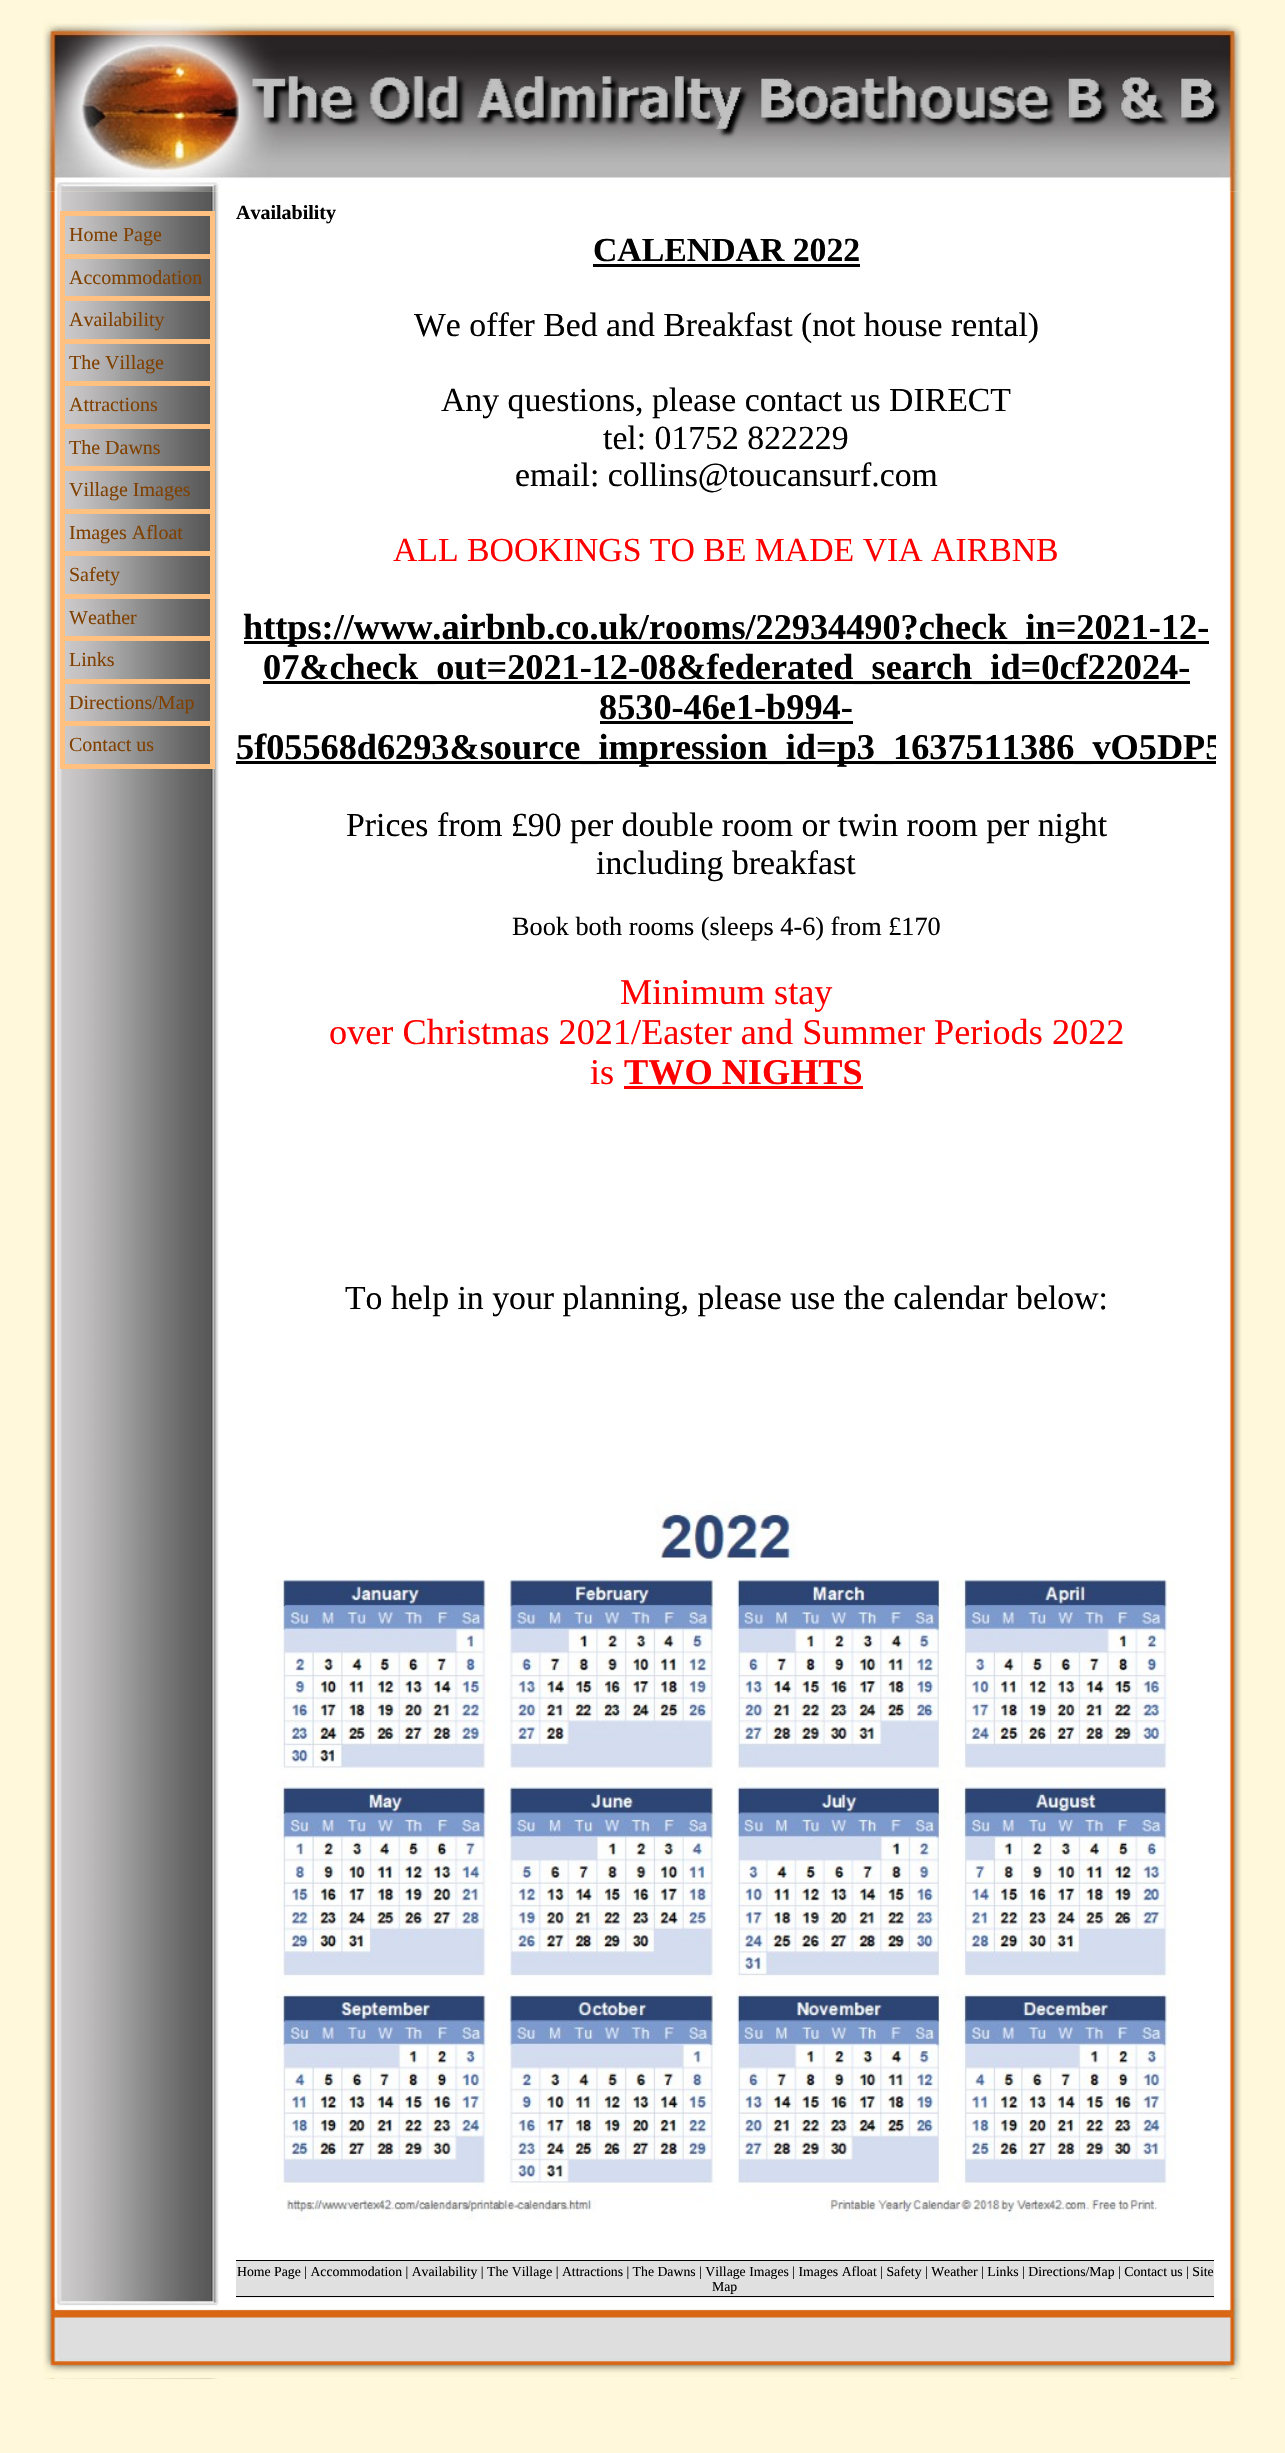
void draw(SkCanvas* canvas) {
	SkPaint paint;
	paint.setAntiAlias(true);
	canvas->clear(0xfffff8db);
	canvas->drawImageRect(SkImages::DeferredFromEncodedData(SkData::MakeFromFileName("img2.png")), SkRect::MakeXYWH(43, 191, 1199, 2188), SkSamplingOptions());
	canvas->drawImageRect(SkImages::DeferredFromEncodedData(SkData::MakeFromFileName("img1.png")), SkRect::MakeXYWH(42, 19, 1200, 173), SkSamplingOptions());
	paint.setStroke(true);
	paint.setStrokeWidth(5);
	paint.setColor(0xffffc080);
	canvas->drawRect(SkRect::MakeXYWH(62.5, 213.5, 150, 43), paint);
	SkFont f1(fontMgr->matchFamilyStyle("Liberation Serif", SkFontStyle::Normal()), 20);
	f1.setSubpixel(true);
	paint.setStroke(false);
	paint.setColor(0xff804000);
	canvas->drawString("Home Page", 69, 241, f1, paint);
	paint.setStroke(true);
	paint.setColor(0xffffc080);
	canvas->drawRect(SkRect::MakeXYWH(62.5, 256.5, 150, 42), paint);
	paint.setStroke(false);
	paint.setColor(0xff804000);
	canvas->drawString("Accommodation", 69, 284, f1, paint);
	paint.setStroke(true);
	paint.setColor(0xffffc080);
	canvas->drawRect(SkRect::MakeXYWH(62.5, 298.5, 150, 43), paint);
	paint.setStroke(false);
	paint.setColor(0xff804000);
	canvas->drawString("Availability", 69, 326, f1, paint);
	paint.setStroke(true);
	paint.setColor(0xffffc080);
	canvas->drawRect(SkRect::MakeXYWH(62.5, 341.5, 150, 42), paint);
	paint.setStroke(false);
	paint.setColor(0xff804000);
	canvas->drawString("The Village", 69, 369, f1, paint);
	paint.setStroke(true);
	paint.setColor(0xffffc080);
	canvas->drawRect(SkRect::MakeXYWH(62.5, 383.5, 150, 43), paint);
	paint.setStroke(false);
	paint.setColor(0xff804000);
	canvas->drawString("Attractions", 69, 411, f1, paint);
	paint.setStroke(true);
	paint.setColor(0xffffc080);
	canvas->drawRect(SkRect::MakeXYWH(62.5, 426.5, 150, 42), paint);
	paint.setStroke(false);
	paint.setColor(0xff804000);
	canvas->drawString("The Dawns", 69, 454, f1, paint);
	paint.setStroke(true);
	paint.setColor(0xffffc080);
	canvas->drawRect(SkRect::MakeXYWH(62.5, 468.5, 150, 43), paint);
	paint.setStroke(false);
	paint.setColor(0xff804000);
	canvas->drawString("Village Images", 69, 496, f1, paint);
	paint.setStroke(true);
	paint.setColor(0xffffc080);
	canvas->drawRect(SkRect::MakeXYWH(62.5, 511.5, 150, 42), paint);
	paint.setStroke(false);
	paint.setColor(0xff804000);
	canvas->drawString("Images Afloat", 69, 539, f1, paint);
	paint.setStroke(true);
	paint.setColor(0xffffc080);
	canvas->drawRect(SkRect::MakeXYWH(62.5, 553.5, 150, 43), paint);
	paint.setStroke(false);
	paint.setColor(0xff804000);
	canvas->drawString("Safety", 69, 581, f1, paint);
	paint.setStroke(true);
	paint.setColor(0xffffc080);
	canvas->drawRect(SkRect::MakeXYWH(62.5, 596.5, 150, 42), paint);
	paint.setStroke(false);
	paint.setColor(0xff804000);
	canvas->drawString("Weather", 69, 624, f1, paint);
	paint.setStroke(true);
	paint.setColor(0xffffc080);
	canvas->drawRect(SkRect::MakeXYWH(62.5, 638.5, 150, 43), paint);
	paint.setStroke(false);
	paint.setColor(0xff804000);
	canvas->drawString("Links", 69, 666, f1, paint);
	paint.setStroke(true);
	paint.setColor(0xffffc080);
	canvas->drawRect(SkRect::MakeXYWH(62.5, 681.5, 150, 42), paint);
	paint.setStroke(false);
	paint.setColor(0xff804000);
	canvas->drawString("Directions/Map", 69, 709, f1, paint);
	paint.setStroke(true);
	paint.setColor(0xffffc080);
	canvas->drawRect(SkRect::MakeXYWH(62.5, 723.5, 150, 43), paint);
	paint.setStroke(false);
	paint.setColor(0xff804000);
	canvas->drawString("Contact us", 69, 751, f1, paint);
	SkFont f2(fontMgr->matchFamilyStyle("Liberation Serif", SkFontStyle::Bold()), 20);
	f2.setSubpixel(true);
	paint.setColor(0xff000000);
	canvas->drawString("Availability", 236, 219, f2, paint);
	SkFont f3(fontMgr->matchFamilyStyle("Liberation Serif", SkFontStyle::Bold()), 33.75);
	f3.setSubpixel(true);
	canvas->drawString("CALENDAR 2022", 593, 261, f3, paint);
	canvas->drawRect(SkRect::MakeXYWH(593, 264, 267, 3), paint);
	SkFont f4(fontMgr->matchFamilyStyle("Liberation Serif", SkFontStyle::Normal()), 33.75);
	f4.setSubpixel(true);
	canvas->drawString("We offer Bed and Breakfast (not house rental)", 414, 336, f4, paint);
	canvas->drawString("Any questions, please contact us DIRECT", 441, 411, f4, paint);
	canvas->drawString("tel: 01752 822229", 603, 449, f4, paint);
	canvas->drawString("email: collins@toucansurf.com", 515, 486, f4, paint);
	paint.setColor(0xffff0000);
	canvas->drawString("ALL BOOKINGS TO BE MADE VIA AIRBNB", 393, 561, f4, paint);
	paint.setColor(0xff000000);
	canvas->drawRect(SkRect::MakeXYWH(244, 641, 965, 3), paint);
	SkFont f5(fontMgr->matchFamilyStyle("Liberation Serif", SkFontStyle::Bold()), 36.25);
	f5.setSubpixel(true);
	canvas->drawString("https://www.airbnb.co.uk/rooms/22934490?check_in=2021-12-", 243, 639, f5, paint);
	canvas->drawRect(SkRect::MakeXYWH(263, 681, 927, 3), paint);
	canvas->drawString("07&check_out=2021-12-08&federated_search_id=0cf22024-", 263, 679, f5, paint);
	canvas->drawString("8530-46e1-b994-", 599, 719, f5, paint);
	canvas->drawRect(SkRect::MakeXYWH(600, 721, 253, 3), paint);
	canvas->drawRect(SkRect::MakeXYWH(236, 761, 980, 3), paint);
	canvas->save();
	canvas->clipRect(SkRect::MakeXYWH(236, 231, 980, 1237));
	canvas->drawString("5f05568d6293&source_impression_id=p3_1637511386_vO5DP5", 236, 759, f5, paint);
	canvas->restore();
	canvas->drawString("Prices from £90 per double room or twin room per night", 346, 836, f4, paint);
	canvas->drawString("including breakfast", 596, 874, f4, paint);
	SkFont f6(fontMgr->matchFamilyStyle("Liberation Serif", SkFontStyle::Normal()), 26.25);
	f6.setSubpixel(true);
	canvas->drawString("Book both rooms (sleeps 4-6) from £170", 512, 935, f6, paint);
	SkFont f7(fontMgr->matchFamilyStyle("Liberation Serif", SkFontStyle::Normal()), 36.25);
	f7.setSubpixel(true);
	paint.setColor(0xffff0000);
	canvas->drawString("Minimum stay", 620, 1004, f7, paint);
	canvas->drawString("over Christmas 2021/Easter and Summer Periods 2022", 329, 1044, f7, paint);
	canvas->drawString("is", 590, 1084, f7, paint);
	canvas->drawString("TWO NIGHTS", 624, 1084, f5, paint);
	canvas->drawRect(SkRect::MakeXYWH(624, 1086, 239, 3), paint);
	paint.setColor(0xff000000);
	canvas->drawString("To help in your planning, please use the calendar below:", 345, 1309, f4, paint);
	canvas->drawImageRect(SkImages::DeferredFromEncodedData(SkData::MakeFromFileName("img3.png")), SkRect::MakeXYWH(276, 1500, 900, 721), SkSamplingOptions());
	paint.setColor(0xffe0e0e0);
	canvas->drawRect(SkRect::MakeXYWH(236, 2261, 978, 37), paint);
	paint.setColor(0xff000000);
	canvas->drawRect(SkRect::MakeXYWH(236, 2260, 978, 1), paint);
	canvas->drawRect(SkRect::MakeXYWH(236, 2296, 978, 1), paint);
	SkFont f8(fontMgr->matchFamilyStyle("Liberation Serif", SkFontStyle::Normal()), 13.75);
	f8.setSubpixel(true);
	canvas->drawString("Home Page | Accommodation | Availability | The Village | Attractions | The Dawns | Village Images | Images Afloat | Safety | Weather | Links | Directions/Map | Contact us | Site", 237, 2276, f8, paint);
	canvas->drawString("Map", 712, 2291, f8, paint);
	canvas->drawImageRect(SkImages::DeferredFromEncodedData(SkData::MakeFromFileName("img4.png")), SkRect::MakeXYWH(43, 2297, 1198, 82), SkSamplingOptions());
}
